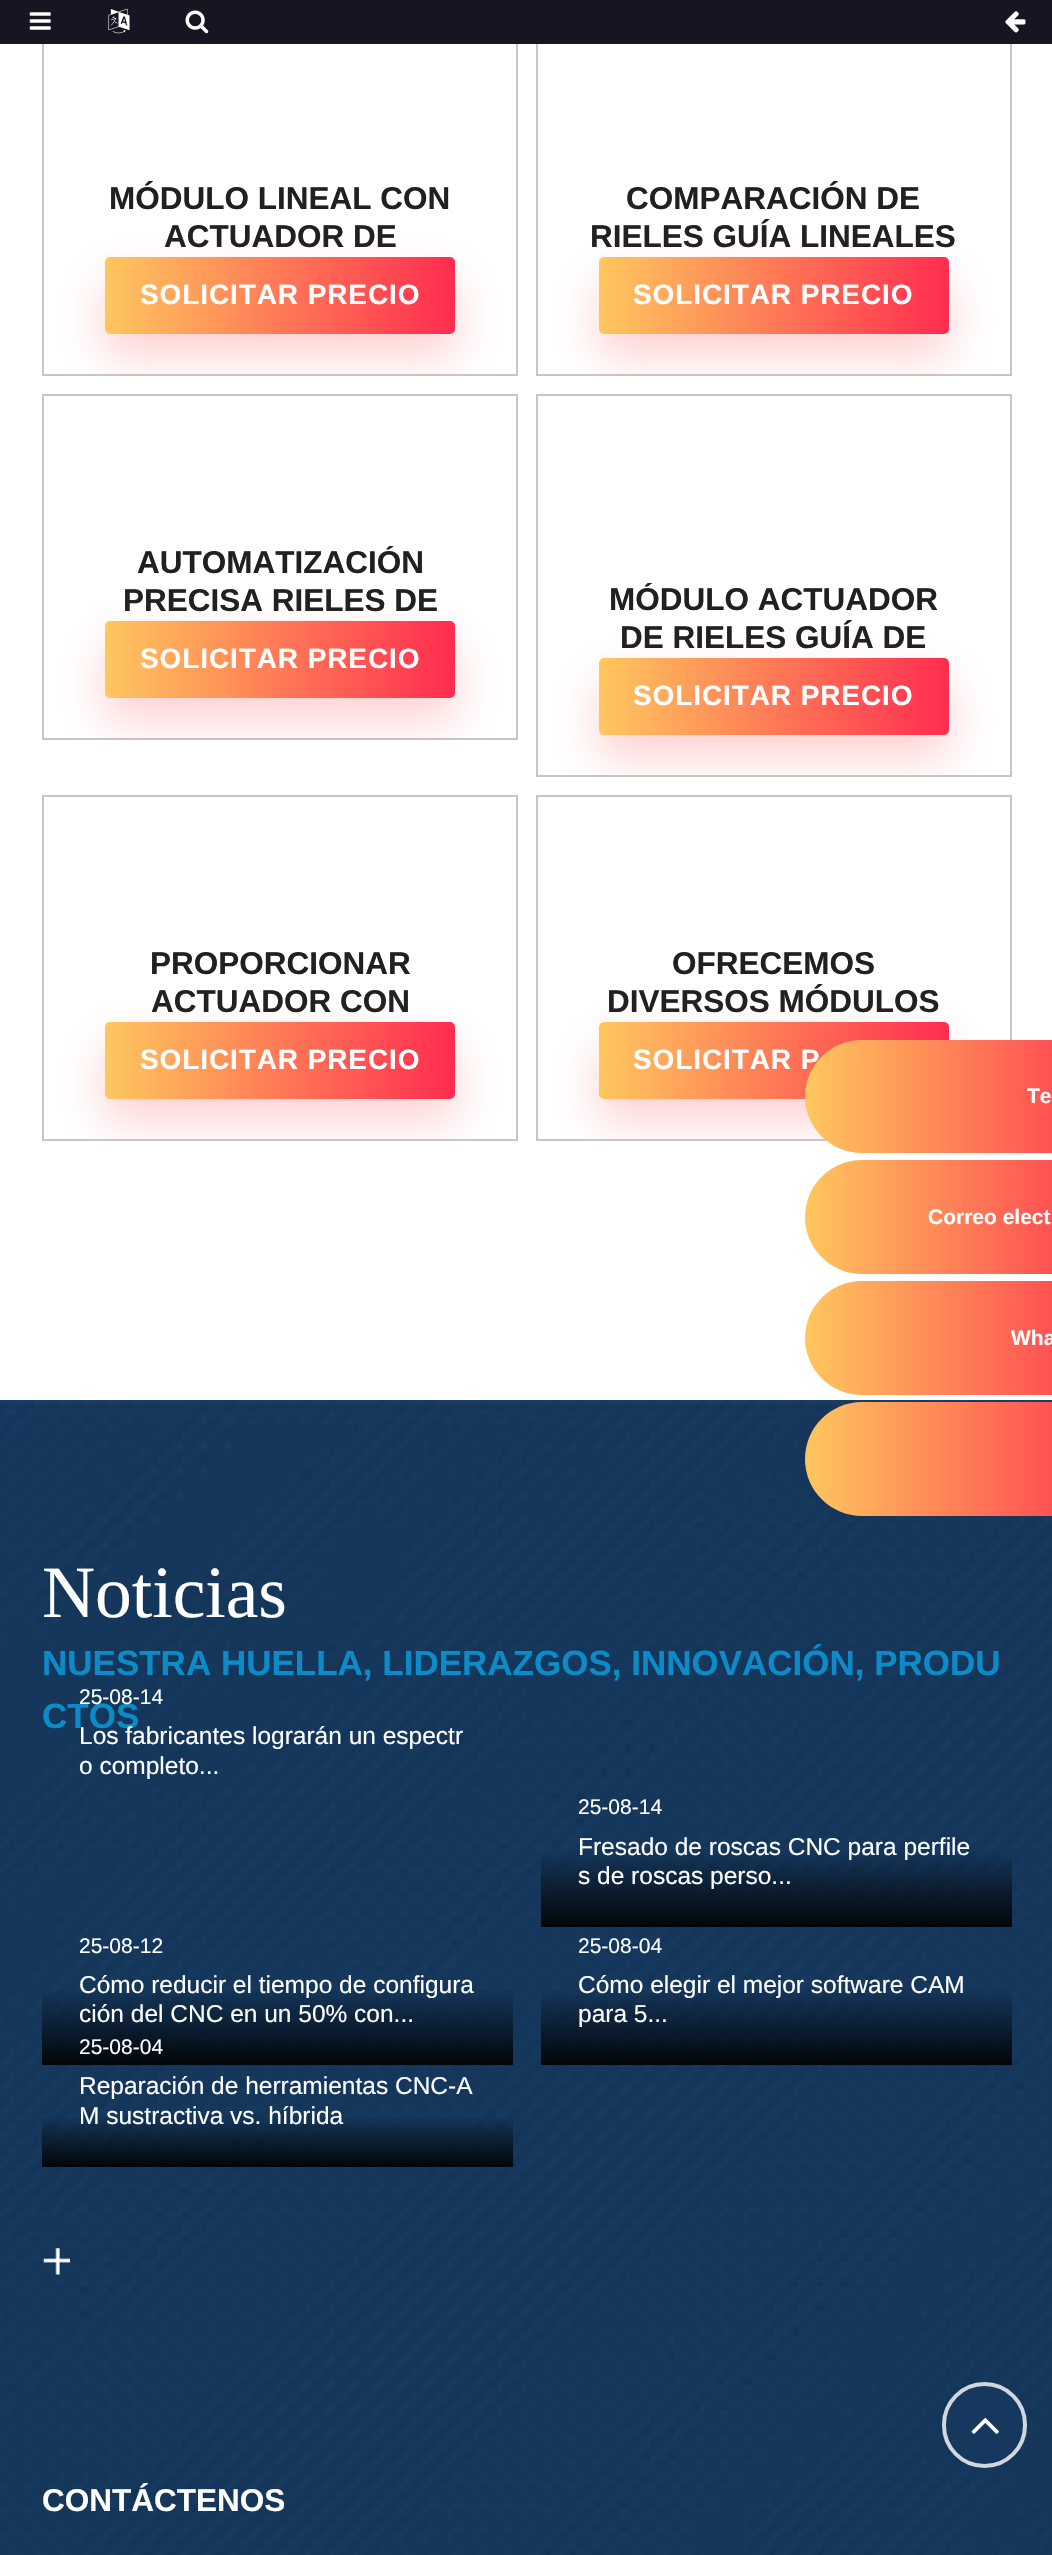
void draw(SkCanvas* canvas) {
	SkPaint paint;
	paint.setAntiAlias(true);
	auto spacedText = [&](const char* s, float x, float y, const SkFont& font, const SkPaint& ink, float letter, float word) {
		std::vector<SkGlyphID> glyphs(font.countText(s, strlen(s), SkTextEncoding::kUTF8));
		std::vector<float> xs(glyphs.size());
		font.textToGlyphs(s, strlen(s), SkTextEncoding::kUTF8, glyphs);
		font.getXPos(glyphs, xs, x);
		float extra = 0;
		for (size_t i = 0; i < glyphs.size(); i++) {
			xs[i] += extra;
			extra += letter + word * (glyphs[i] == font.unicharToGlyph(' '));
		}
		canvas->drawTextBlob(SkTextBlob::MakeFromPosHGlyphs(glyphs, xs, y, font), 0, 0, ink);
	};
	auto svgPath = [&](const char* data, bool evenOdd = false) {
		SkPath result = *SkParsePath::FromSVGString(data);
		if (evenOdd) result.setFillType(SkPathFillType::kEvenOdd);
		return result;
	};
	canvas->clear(0xffffffff);
	paint.setStroke(true);
	paint.setStrokeWidth(2);
	paint.setColor(0xffc6c6c6);
	canvas->drawRect(SkRect::MakeXYWH(43, 29, 474, 346), paint);
	canvas->drawRect(SkRect::MakeXYWH(537, 29, 474, 346), paint);
	paint.setStroke(false);
	paint.setColor(0xff161622);
	canvas->drawRect(SkRect::MakeXYWH(0, 0, 1052, 44), paint);
	canvas->drawImageRect(SkImages::DeferredFromEncodedData(SkData::MakeFromFileName("img1.png")), SkRect::MakeXYWH(29, 12, 22, 18), SkSamplingOptions());
	canvas->drawImageRect(SkImages::DeferredFromEncodedData(SkData::MakeFromFileName("img2.png")), SkRect::MakeXYWH(108, 8, 22, 26), SkSamplingOptions());
	canvas->drawImageRect(SkImages::DeferredFromEncodedData(SkData::MakeFromFileName("img3.png")), SkRect::MakeXYWH(185, 10, 24, 24), SkSamplingOptions());
	canvas->drawImageRect(SkImages::DeferredFromEncodedData(SkData::MakeFromFileName("img4.png")), SkRect::MakeXYWH(1005, 11, 21, 22), SkSamplingOptions());
	SkFont f1(fontMgr->matchFamilyStyle("Liberation Sans", SkFontStyle::Bold()), 31.5);
	f1.setSubpixel(true);
	paint.setColor(0xff202020);
	canvas->drawString("MÓDULO LINEAL CON", 109, 209, f1, paint);
	canvas->drawString("ACTUADOR DE", 164, 247, f1, paint);
	paint.setStroke(true);
	paint.setColor(0xffc6c6c6);
	canvas->drawRect(SkRect::MakeXYWH(43, 395, 474, 344), paint);
	canvas->save();
	canvas->clipRect(SkRect::MakeXYWH(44, 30, 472, 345));
	paint.setStroke(false);
	paint.setColor(0x40fa4444);
	paint.setMaskFilter(SkMaskFilter::MakeBlur(kNormal_SkBlurStyle, 23.5));
	canvas->drawRoundRect(SkRect::MakeXYWH(105, 280, 350, 77), 5, 5, paint);
	paint.setMaskFilter(nullptr);
	canvas->restore();
	{
		const SkColor colors[] = {0xffffc75e, 0xffff2c4f};
		const float stops[] = {0, 1};
		const SkPoint ends[] = {{105, 296}, {455, 296}};
		paint.setShader(SkGradientShader::MakeLinear(ends, colors, stops, 2, SkTileMode::kClamp));
		paint.setAlpha(255);
	}
	canvas->drawRoundRect(SkRect::MakeXYWH(105, 257, 350, 77), 5, 5, paint);
	SkFont f2(fontMgr->matchFamilyStyle("Liberation Sans", SkFontStyle::Bold()), 28);
	f2.setSubpixel(true);
	paint.setShader(nullptr);
	paint.setColor(0xffffffff);
	spacedText("SOLICITAR PRECIO", 140, 304, f2, paint, 0.9, 0);
	paint.setColor(0xff202020);
	canvas->drawString("COMPARACIÓN DE", 626, 209, f1, paint);
	canvas->drawString("RIELES GUÍA LINEALES", 590, 247, f1, paint);
	paint.setStroke(true);
	paint.setColor(0xffc6c6c6);
	canvas->drawRect(SkRect::MakeXYWH(537, 395, 474, 381), paint);
	canvas->save();
	canvas->clipRect(SkRect::MakeXYWH(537, 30, 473, 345));
	paint.setStroke(false);
	paint.setColor(0x40fa4444);
	paint.setMaskFilter(SkMaskFilter::MakeBlur(kNormal_SkBlurStyle, 23.5));
	canvas->drawRoundRect(SkRect::MakeXYWH(599, 280, 350, 77), 5, 5, paint);
	paint.setMaskFilter(nullptr);
	canvas->restore();
	{
		const SkColor colors[] = {0xffffc75e, 0xffff2c4f};
		const float stops[] = {0, 1};
		const SkPoint ends[] = {{599, 296}, {949, 296}};
		paint.setShader(SkGradientShader::MakeLinear(ends, colors, stops, 2, SkTileMode::kClamp));
		paint.setAlpha(255);
	}
	canvas->drawRoundRect(SkRect::MakeXYWH(599, 257, 350, 77), 5, 5, paint);
	paint.setShader(nullptr);
	paint.setColor(0xffffffff);
	spacedText("SOLICITAR PRECIO", 633, 304, f2, paint, 0.9, 0);
	canvas->save();
	canvas->clipRect(SkRect::MakeXYWH(75, 546, 410, 75));
	paint.setColor(0xff202020);
	canvas->drawString("AUTOMATIZACIÓN", 137, 573, f1, paint);
	canvas->restore();
	canvas->drawString("PRECISA RIELES DE", 123, 611, f1, paint);
	canvas->save();
	canvas->clipRect(SkRect::MakeXYWH(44, 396, 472, 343));
	paint.setColor(0x40fa4444);
	paint.setMaskFilter(SkMaskFilter::MakeBlur(kNormal_SkBlurStyle, 23.5));
	canvas->drawRoundRect(SkRect::MakeXYWH(105, 644, 350, 77), 5, 5, paint);
	paint.setMaskFilter(nullptr);
	canvas->restore();
	{
		const SkColor colors[] = {0xffffc75e, 0xffff2c4f};
		const float stops[] = {0, 1};
		const SkPoint ends[] = {{105, 660}, {455, 660}};
		paint.setShader(SkGradientShader::MakeLinear(ends, colors, stops, 2, SkTileMode::kClamp));
		paint.setAlpha(255);
	}
	canvas->drawRoundRect(SkRect::MakeXYWH(105, 621, 350, 77), 5, 5, paint);
	paint.setShader(nullptr);
	paint.setColor(0xffffffff);
	spacedText("SOLICITAR PRECIO", 140, 668, f2, paint, 0.9, 0);
	canvas->save();
	canvas->clipRect(SkRect::MakeXYWH(569, 583, 409, 75));
	paint.setColor(0xff202020);
	canvas->drawString("MÓDULO ACTUADOR", 609, 610, f1, paint);
	canvas->restore();
	canvas->drawString("DE RIELES GUÍA DE", 620, 648, f1, paint);
	paint.setStroke(true);
	paint.setColor(0xffc6c6c6);
	canvas->drawRect(SkRect::MakeXYWH(537, 796, 474, 344), paint);
	canvas->save();
	canvas->clipRect(SkRect::MakeXYWH(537, 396, 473, 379));
	paint.setStroke(false);
	paint.setColor(0x40fa4444);
	paint.setMaskFilter(SkMaskFilter::MakeBlur(kNormal_SkBlurStyle, 23.5));
	canvas->drawRoundRect(SkRect::MakeXYWH(599, 681, 350, 77), 5, 5, paint);
	paint.setMaskFilter(nullptr);
	canvas->restore();
	{
		const SkColor colors[] = {0xffffc75e, 0xffff2c4f};
		const float stops[] = {0, 1};
		const SkPoint ends[] = {{599, 697}, {949, 697}};
		paint.setShader(SkGradientShader::MakeLinear(ends, colors, stops, 2, SkTileMode::kClamp));
		paint.setAlpha(255);
	}
	canvas->drawRoundRect(SkRect::MakeXYWH(599, 658, 350, 77), 5, 5, paint);
	paint.setShader(nullptr);
	paint.setColor(0xffffffff);
	spacedText("SOLICITAR PRECIO", 633, 705, f2, paint, 0.9, 0);
	paint.setStroke(true);
	paint.setColor(0xffc6c6c6);
	canvas->drawRect(SkRect::MakeXYWH(43, 796, 474, 344), paint);
	paint.setStroke(false);
	paint.setColor(0xff202020);
	canvas->drawString("PROPORCIONAR", 150, 974, f1, paint);
	canvas->drawString("ACTUADOR CON", 151, 1012, f1, paint);
	canvas->save();
	canvas->clipRect(SkRect::MakeXYWH(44, 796, 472, 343));
	paint.setColor(0x40fa4444);
	paint.setMaskFilter(SkMaskFilter::MakeBlur(kNormal_SkBlurStyle, 23.5));
	canvas->drawRoundRect(SkRect::MakeXYWH(105, 1045, 350, 77), 5, 5, paint);
	paint.setMaskFilter(nullptr);
	canvas->restore();
	{
		const SkColor colors[] = {0xffffc75e, 0xffff2c4f};
		const float stops[] = {0, 1};
		const SkPoint ends[] = {{105, 1061}, {455, 1061}};
		paint.setShader(SkGradientShader::MakeLinear(ends, colors, stops, 2, SkTileMode::kClamp));
		paint.setAlpha(255);
	}
	canvas->drawRoundRect(SkRect::MakeXYWH(105, 1022, 350, 77), 5, 5, paint);
	paint.setShader(nullptr);
	paint.setColor(0xffffffff);
	spacedText("SOLICITAR PRECIO", 140, 1069, f2, paint, 0.9, 0);
	paint.setColor(0xff202020);
	canvas->drawString("OFRECEMOS", 672, 974, f1, paint);
	canvas->drawString("DIVERSOS MÓDULOS", 607, 1012, f1, paint);
	canvas->save();
	canvas->clipRect(SkRect::MakeXYWH(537, 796, 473, 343));
	paint.setColor(0x40fa4444);
	paint.setMaskFilter(SkMaskFilter::MakeBlur(kNormal_SkBlurStyle, 23.5));
	canvas->drawRoundRect(SkRect::MakeXYWH(599, 1045, 350, 77), 5, 5, paint);
	paint.setMaskFilter(nullptr);
	canvas->restore();
	{
		const SkColor colors[] = {0xffffc75e, 0xffff2c4f};
		const float stops[] = {0, 1};
		const SkPoint ends[] = {{599, 1061}, {949, 1061}};
		paint.setShader(SkGradientShader::MakeLinear(ends, colors, stops, 2, SkTileMode::kClamp));
		paint.setAlpha(255);
	}
	canvas->drawRoundRect(SkRect::MakeXYWH(599, 1022, 350, 77), 5, 5, paint);
	paint.setShader(nullptr);
	paint.setColor(0xffffffff);
	spacedText("SOLICITAR P", 633, 1069, f2, paint, 0.9, 0);
	{
		const SkColor colors[] = {0xffffc75e, 0xffff2c4f};
		const float stops[] = {0, 1};
		const SkPoint ends[] = {{805, 1096}, {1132, 1096}};
		paint.setShader(SkGradientShader::MakeLinear(ends, colors, stops, 2, SkTileMode::kClamp));
		paint.setAlpha(255);
	}
	canvas->drawPath(svgPath("M861.5 1040H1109V1153H861.5C830.5 1153 805 1127.5 805 1096.5C805 1065.5 830.5 1040 861.5 1040Z"), paint);
	SkFont f3(fontMgr->matchFamilyStyle("Liberation Sans", SkFontStyle::Bold()), 21);
	f3.setSubpixel(true);
	paint.setShader(nullptr);
	paint.setColor(0xffffffff);
	canvas->drawString("Te", 1027, 1103, f3, paint);
	{
		const SkColor colors[] = {0xffffc75e, 0xffff2c4f};
		const float stops[] = {0, 1};
		const SkPoint ends[] = {{805, 1217}, {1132, 1217}};
		paint.setShader(SkGradientShader::MakeLinear(ends, colors, stops, 2, SkTileMode::kClamp));
		paint.setAlpha(255);
	}
	canvas->drawPath(svgPath("M862 1160H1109V1274H862C830.5 1274 805 1248.5 805 1217C805 1185.5 830.5 1160 862 1160Z"), paint);
	paint.setShader(nullptr);
	paint.setColor(0xffffffff);
	canvas->drawString("Correo elect", 928, 1224, f3, paint);
	{
		const SkColor colors[] = {0xffffc75e, 0xffff2c4f};
		const float stops[] = {0, 1};
		const SkPoint ends[] = {{805, 1338}, {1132, 1338}};
		paint.setShader(SkGradientShader::MakeLinear(ends, colors, stops, 2, SkTileMode::kClamp));
		paint.setAlpha(255);
	}
	canvas->drawPath(svgPath("M862 1281H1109V1395H862C830.5 1395 805 1369.5 805 1338C805 1306.5 830.5 1281 862 1281Z"), paint);
	paint.setShader(nullptr);
	paint.setColor(0xffffffff);
	canvas->drawString("Wha", 1011, 1345, f3, paint);
	canvas->drawImageRect(SkImages::DeferredFromEncodedData(SkData::MakeFromFileName("img5.png")), SkRect::MakeXYWH(0, 1400, 1052, 1155), SkSamplingOptions());
	{
		const SkColor colors[] = {0xffffc75e, 0xffff2c4f};
		const float stops[] = {0, 1};
		const SkPoint ends[] = {{805, 1459}, {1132, 1459}};
		paint.setShader(SkGradientShader::MakeLinear(ends, colors, stops, 2, SkTileMode::kClamp));
		paint.setAlpha(255);
	}
	canvas->drawPath(svgPath("M862 1402H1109V1516H862C830.5 1516 805 1490.5 805 1459C805 1427.5 830.5 1402 862 1402Z"), paint);
	SkFont f4(fontMgr->matchFamilyStyle("Liberation Serif", SkFontStyle::Normal()), 73.5);
	f4.setSubpixel(true);
	paint.setShader(nullptr);
	paint.setColor(0xffffffff);
	canvas->drawString("Noticias", 42, 1617, f4, paint);
	SkFont f5(fontMgr->matchFamilyStyle("Liberation Sans", SkFontStyle::Bold()), 35);
	f5.setSubpixel(true);
	paint.setColor(0xff0b8cc9);
	canvas->drawString("NUESTRA HUELLA, LIDERAZGOS, INNOVACIÓN, PRODU", 42, 1675, f5, paint);
	canvas->drawString("CTOS", 42, 1728, f5, paint);
	SkFont f6(fontMgr->matchFamilyStyle("Liberation Sans", SkFontStyle::Normal()), 21);
	f6.setSubpixel(true);
	paint.setColor(0xffffffff);
	canvas->drawString("25-08-14", 79, 1704, f6, paint);
	SkFont f7(fontMgr->matchFamilyStyle("Liberation Sans", SkFontStyle::Normal()), 24.5);
	f7.setSubpixel(true);
	canvas->drawString("Los fabricantes lograrán un espectr", 79, 1744, f7, paint);
	canvas->drawString("o completo...", 79, 1774, f7, paint);
	canvas->drawString("25-08-14", 578, 1814, f6, paint);
	canvas->drawString("Fresado de roscas CNC para perfile", 578, 1855, f7, paint);
	canvas->drawString("s de roscas perso...", 578, 1884, f7, paint);
	canvas->drawString("25-08-12", 79, 1953, f6, paint);
	canvas->drawString("Cómo reducir el tiempo de configura", 79, 1993, f7, paint);
	canvas->drawString("ción del CNC en un 50% con...", 79, 2022, f7, paint);
	canvas->drawString("25-08-04", 578, 1953, f6, paint);
	canvas->drawString("Cómo elegir el mejor software CAM", 578, 1993, f7, paint);
	canvas->drawString("para 5...", 578, 2022, f7, paint);
	canvas->drawString("25-08-04", 79, 2054, f6, paint);
	canvas->drawString("Reparación de herramientas CNC-A", 79, 2094, f7, paint);
	canvas->drawString("M sustractiva vs. híbrida", 79, 2124, f7, paint);
	canvas->drawImageRect(SkImages::DeferredFromEncodedData(SkData::MakeFromFileName("img6.png")), SkRect::MakeXYWH(43, 2248, 27, 27), SkSamplingOptions());
	canvas->drawString("CONTÁCTENOS", 42, 2511, f1, paint);
	paint.setColor(0xff16385e);
	canvas->drawCircle(984.5, 2424.5, 39.5, paint);
	paint.setStroke(true);
	paint.setStrokeWidth(4);
	paint.setColor(0xccffffff);
	canvas->drawRoundRect(SkRect::MakeXYWH(944, 2384, 81, 82), 40.5, 40.5, paint);
	canvas->drawImageRect(SkImages::DeferredFromEncodedData(SkData::MakeFromFileName("img7.png")), SkRect::MakeXYWH(971, 2418, 28, 16), SkSamplingOptions());
}
